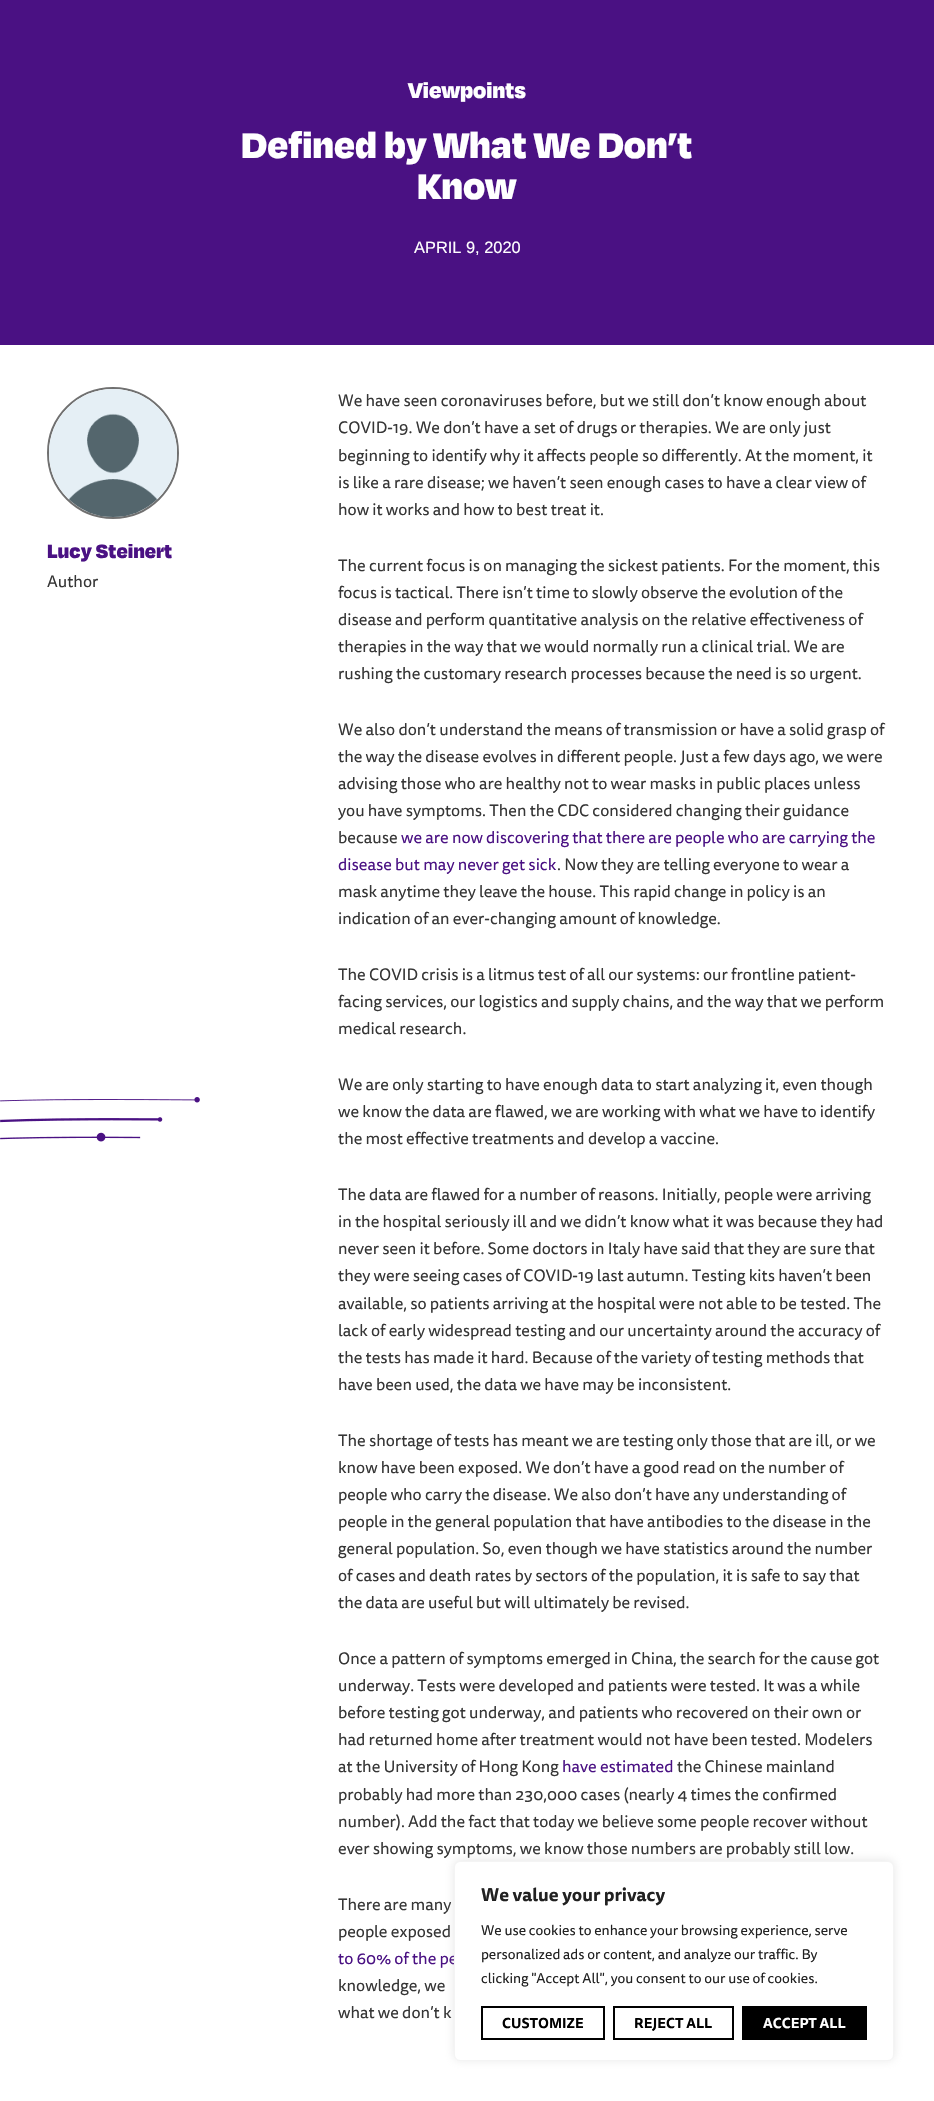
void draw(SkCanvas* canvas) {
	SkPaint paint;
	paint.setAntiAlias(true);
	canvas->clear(0xffffffff);
	paint.setColor(0xff4a1183);
	canvas->drawRect(SkRect::MakeXYWH(0, 0, 934, 345), paint);
	SkFont f1(fontMgr->matchFamilyStyle("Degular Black", SkFontStyle(900, SkFontStyle::kNormal_Width, SkFontStyle::kUpright_Slant)), 24.5);
	f1.setSubpixel(true);
	paint.setColor(0xffffffff);
	canvas->drawString("Viewpoints", 408, 98, f1, paint);
	SkFont f2(fontMgr->matchFamilyStyle("Degular Black", SkFontStyle(900, SkFontStyle::kNormal_Width, SkFontStyle::kUpright_Slant)), 41);
	f2.setSubpixel(true);
	canvas->drawString("Defined by What We Don’t", 241, 158, f2, paint);
	canvas->drawString("Know", 417, 199, f2, paint);
	SkFont f3(fontMgr->matchFamilyStyle("Liberation Sans", SkFontStyle::Normal()), 16.4);
	f3.setSubpixel(true);
	canvas->drawString("APRIL 9, 2020", 414, 253, f3, paint);
	canvas->drawImageRect(SkImages::DeferredFromEncodedData(SkData::MakeFromFileName("img1.png")), SkRect::MakeXYWH(0, 1097, 200, 45), SkSamplingOptions());
	paint.setStroke(true);
	paint.setStrokeWidth(2);
	paint.setColor(0xff707070);
	canvas->drawCircle(113, 453, 65, paint);
	canvas->drawImageRect(SkImages::DeferredFromEncodedData(SkData::MakeFromFileName("img2.png")), SkRect::MakeXYWH(49, 389, 128, 128), SkSamplingOptions());
	SkFont f4(fontMgr->matchFamilyStyle("Degular Black", SkFontStyle(900, SkFontStyle::kNormal_Width, SkFontStyle::kUpright_Slant)), 22);
	f4.setSubpixel(true);
	paint.setStroke(false);
	paint.setColor(0xff4a1183);
	canvas->drawString("Lucy Steinert", 47, 558, f4, paint);
	SkFont f5(fontMgr->matchFamilyStyle("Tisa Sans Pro", SkFontStyle::Normal()), 16.4);
	f5.setSubpixel(true);
	paint.setColor(0xff363636);
	canvas->drawString("Author", 47, 587, f5, paint);
	canvas->drawString("We have seen coronaviruses before, but we still don’t know enough about", 338, 406, f5, paint);
	canvas->drawString("COVID-19. We don’t have a set of drugs or therapies. We are only just", 338, 433, f5, paint);
	canvas->drawString("beginning to identify why it affects people so differently. At the moment, it", 338, 461, f5, paint);
	canvas->drawString("is like a rare disease; we haven’t seen enough cases to have a clear view of", 338, 488, f5, paint);
	canvas->drawString("how it works and how to best treat it.", 338, 515, f5, paint);
	canvas->drawString("The current focus is on managing the sickest patients. For the moment, this", 338, 571, f5, paint);
	canvas->drawString("focus is tactical. There isn’t time to slowly observe the evolution of the", 338, 598, f5, paint);
	canvas->drawString("disease and perform quantitative analysis on the relative effectiveness of", 338, 625, f5, paint);
	canvas->drawString("therapies in the way that we would normally run a clinical trial. We are", 338, 652, f5, paint);
	canvas->drawString("rushing the customary research processes because the need is so urgent.", 338, 679, f5, paint);
	canvas->drawString("We also don’t understand the means of transmission or have a solid grasp of", 338, 735, f5, paint);
	canvas->drawString("the way the disease evolves in different people. Just a few days ago, we were", 338, 762, f5, paint);
	canvas->drawString("advising those who are healthy not to wear masks in public places unless", 338, 789, f5, paint);
	canvas->drawString("you have symptoms. Then the CDC considered changing their guidance", 338, 816, f5, paint);
	canvas->drawString("because", 338, 843, f5, paint);
	paint.setColor(0xff4a1183);
	canvas->drawString("we are now discovering that there are people who are carrying the", 401, 843, f5, paint);
	canvas->drawString("disease but may never get sick", 338, 870, f5, paint);
	paint.setColor(0xff363636);
	canvas->drawString(". Now they are telling everyone to wear a", 557, 870, f5, paint);
	canvas->drawString("mask anytime they leave the house. This rapid change in policy is an", 338, 897, f5, paint);
	canvas->drawString("indication of an ever-changing amount of knowledge.", 338, 924, f5, paint);
	canvas->drawString("The COVID crisis is a litmus test of all our systems: our frontline patient-", 338, 980, f5, paint);
	canvas->drawString("facing services, our logistics and supply chains, and the way that we perform", 338, 1007, f5, paint);
	canvas->drawString("medical research.", 338, 1034, f5, paint);
	canvas->drawString("We are only starting to have enough data to start analyzing it, even though", 338, 1090, f5, paint);
	canvas->drawString("we know the data are flawed, we are working with what we have to identify", 338, 1117, f5, paint);
	canvas->drawString("the most effective treatments and develop a vaccine.", 338, 1144, f5, paint);
	canvas->drawString("The data are flawed for a number of reasons. Initially, people were arriving", 338, 1200, f5, paint);
	canvas->drawString("in the hospital seriously ill and we didn’t know what it was because they had", 338, 1227, f5, paint);
	canvas->drawString("never seen it before. Some doctors in Italy have said that they are sure that", 338, 1254, f5, paint);
	canvas->drawString("they were seeing cases of COVID-19 last autumn. Testing kits haven’t been", 338, 1281, f5, paint);
	canvas->drawString("available, so patients arriving at the hospital were not able to be tested. The", 338, 1309, f5, paint);
	canvas->drawString("lack of early widespread testing and our uncertainty around the accuracy of", 338, 1336, f5, paint);
	canvas->drawString("the tests has made it hard. Because of the variety of testing methods that", 338, 1363, f5, paint);
	canvas->drawString("have been used, the data we have may be inconsistent.", 338, 1390, f5, paint);
	canvas->drawString("The shortage of tests has meant we are testing only those that are ill, or we", 338, 1446, f5, paint);
	canvas->drawString("know have been exposed. We don’t have a good read on the number of", 338, 1473, f5, paint);
	canvas->drawString("people who carry the disease. We also don’t have any understanding of", 338, 1500, f5, paint);
	canvas->drawString("people in the general population that have antibodies to the disease in the", 338, 1527, f5, paint);
	canvas->drawString("general population. So, even though we have statistics around the number", 338, 1554, f5, paint);
	canvas->drawString("of cases and death rates by sectors of the population, it is safe to say that", 338, 1581, f5, paint);
	canvas->drawString("the data are useful but will ultimately be revised.", 338, 1608, f5, paint);
	canvas->drawString("Once a pattern of symptoms emerged in China, the search for the cause got", 338, 1664, f5, paint);
	canvas->drawString("underway. Tests were developed and patients were tested. It was a while", 338, 1691, f5, paint);
	canvas->drawString("before testing got underway, and patients who recovered on their own or", 338, 1718, f5, paint);
	canvas->drawString("had returned home after treatment would not have been tested. Modelers", 338, 1745, f5, paint);
	canvas->drawString("at the University of Hong Kong", 338, 1772, f5, paint);
	paint.setColor(0xff4a1183);
	canvas->drawString("have estimated", 562, 1772, f5, paint);
	paint.setColor(0xff363636);
	canvas->drawString("the Chinese mainland", 677, 1772, f5, paint);
	canvas->drawString("probably had more than 230,000 cases (nearly 4 times the confirmed", 338, 1800, f5, paint);
	canvas->drawString("number). Add the fact that today we believe some people recover without", 338, 1827, f5, paint);
	canvas->drawString("ever showing symptoms, we know those numbers are probably still low.", 338, 1854, f5, paint);
	canvas->drawString("There are many", 338, 1910, f5, paint);
	canvas->drawString("people exposed", 338, 1937, f5, paint);
	paint.setColor(0xff4a1183);
	canvas->drawString("to 60% of the pe", 338, 1964, f5, paint);
	paint.setColor(0xff363636);
	canvas->drawString("knowledge, we", 338, 1991, f5, paint);
	canvas->drawString("what we don’t k", 338, 2018, f5, paint);
	paint.setColor(0x4dacabab);
	paint.setMaskFilter(SkMaskFilter::MakeBlur(kNormal_SkBlurStyle, 5));
	canvas->drawRoundRect(SkRect::MakeXYWH(454, 1860, 440, 200), 6, 6, paint);
	paint.setMaskFilter(nullptr);
	paint.setColor(0xffffffff);
	canvas->drawRoundRect(SkRect::MakeXYWH(454.5, 1861.5, 439, 199), 5.5, 5.5, paint);
	paint.setStroke(true);
	paint.setStrokeWidth(1);
	paint.setColor(0xfff4f4f4);
	canvas->drawRoundRect(SkRect::MakeXYWH(454.5, 1861.5, 439, 199), 5.5, 5.5, paint);
	SkFont f6(fontMgr->matchFamilyStyle("Tisa Sans Pro", SkFontStyle::Bold()), 18);
	f6.setSubpixel(true);
	paint.setStroke(false);
	paint.setColor(0xff212121);
	canvas->drawString("We value your privacy", 481, 1901, f6, paint);
	SkFont f7(fontMgr->matchFamilyStyle("Tisa Sans Pro", SkFontStyle::Normal()), 14);
	f7.setSubpixel(true);
	canvas->drawString("We use cookies to enhance your browsing experience, serve", 481, 1935, f7, paint);
	canvas->drawString("personalized ads or content, and analyze our traffic. By", 481, 1959, f7, paint);
	canvas->drawString("clicking \"Accept All\", you consent to our use of cookies.", 481, 1983, f7, paint);
	paint.setStroke(true);
	paint.setStrokeWidth(2);
	paint.setColor(0xff000000);
	canvas->drawRect(SkRect::MakeXYWH(482, 2007, 122, 32), paint);
	SkFont f8(fontMgr->matchFamilyStyle("Tisa Sans Pro", SkFontStyle::Bold()), 14);
	f8.setSubpixel(true);
	paint.setStroke(false);
	canvas->drawString("CUSTOMIZE", 502, 2028, f8, paint);
	paint.setStroke(true);
	canvas->drawRect(SkRect::MakeXYWH(614, 2007, 119, 32), paint);
	paint.setStroke(false);
	canvas->drawString("REJECT ALL", 634, 2028, f8, paint);
	canvas->drawRect(SkRect::MakeXYWH(742, 2006, 125, 34), paint);
	paint.setColor(0xffffffff);
	canvas->drawString("ACCEPT ALL", 763, 2028, f8, paint);
}
